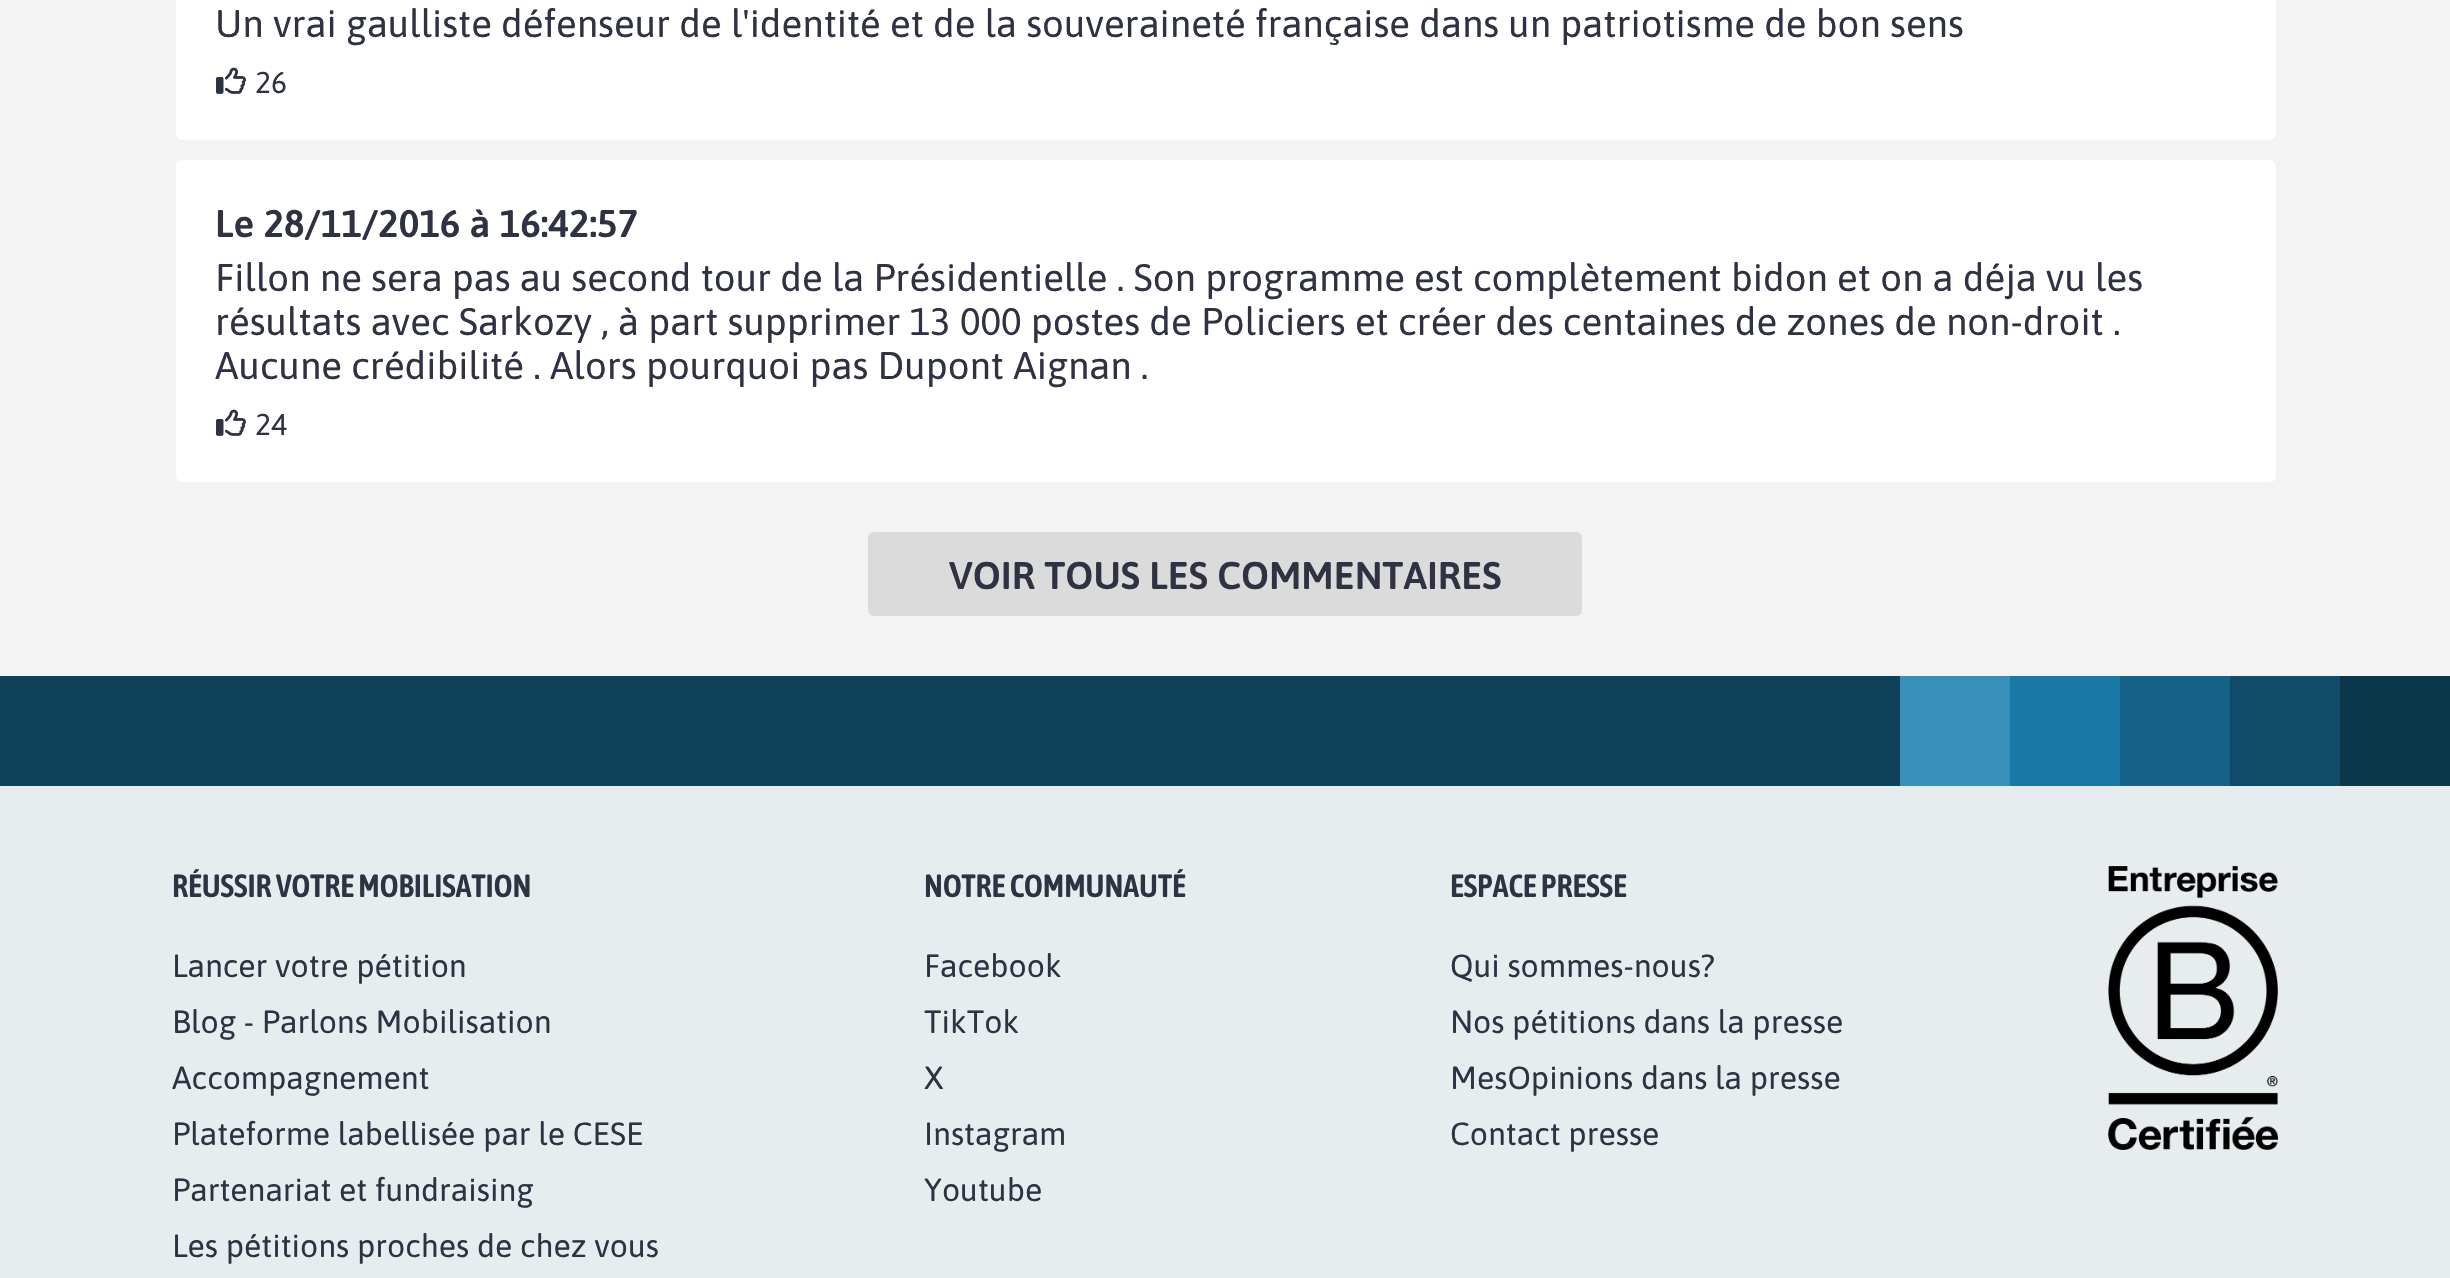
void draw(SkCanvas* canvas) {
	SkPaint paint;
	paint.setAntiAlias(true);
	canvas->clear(0xfff3f3f3);
	paint.setColor(0xffffffff);
	canvas->drawRoundRect(SkRect::MakeXYWH(176, -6, 2100, 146), 6, 6, paint);
	SkFont f1(fontMgr->matchFamilyStyle("Asap", SkFontStyle::Normal()), 38.4);
	f1.setSubpixel(true);
	paint.setColor(0xff2e3242);
	canvas->drawString("Un vrai gaulliste défenseur de l'identité et de la souveraineté française dans un patriotisme de bon sens", 215, 37, f1, paint);
	canvas->drawImageRect(SkImages::DeferredFromEncodedData(SkData::MakeFromFileName("img1.png")), SkRect::MakeXYWH(216, 67, 30, 27), SkSamplingOptions());
	SkFont f2(fontMgr->matchFamilyStyle("Asap", SkFontStyle::Normal()), 30);
	f2.setSubpixel(true);
	canvas->drawString("26", 255, 93, f2, paint);
	paint.setColor(0xffffffff);
	canvas->drawRoundRect(SkRect::MakeXYWH(176, 160, 2100, 322), 6, 6, paint);
	SkFont f3(fontMgr->matchFamilyStyle("Asap", SkFontStyle(600, SkFontStyle::kNormal_Width, SkFontStyle::kUpright_Slant)), 38.4);
	f3.setSubpixel(true);
	paint.setColor(0xff2e3242);
	canvas->drawString("Le 28/11/2016 à 16:42:57", 215, 237, f3, paint);
	canvas->drawString("Fillon ne sera pas au second tour de la Présidentielle . Son programme est complètement bidon et on a déja vu les", 215, 291, f1, paint);
	canvas->drawString("résultats avec Sarkozy , à part supprimer 13 000 postes de Policiers et créer des centaines de zones de non-droit .", 215, 335, f1, paint);
	canvas->drawString("Aucune crédibilité . Alors pourquoi pas Dupont Aignan .", 215, 379, f1, paint);
	canvas->drawImageRect(SkImages::DeferredFromEncodedData(SkData::MakeFromFileName("img1.png")), SkRect::MakeXYWH(216, 409, 30, 27), SkSamplingOptions());
	canvas->drawString("24", 255, 435, f2, paint);
	paint.setColor(0xffdbdbdb);
	canvas->drawRoundRect(SkRect::MakeXYWH(868, 532, 714, 84), 6, 6, paint);
	paint.setColor(0xff2e3242);
	canvas->drawString("VOIR TOUS LES COMMENTAIRES", 949, 589, f3, paint);
	paint.setColor(0xff0e415a);
	canvas->drawRect(SkRect::MakeXYWH(0, 676, 1900, 110), paint);
	paint.setColor(0xff3890ba);
	canvas->drawRect(SkRect::MakeXYWH(1900, 676, 110, 110), paint);
	paint.setColor(0xff1978a5);
	canvas->drawRect(SkRect::MakeXYWH(2010, 676, 110, 110), paint);
	paint.setColor(0xff146287);
	canvas->drawRect(SkRect::MakeXYWH(2120, 676, 110, 110), paint);
	paint.setColor(0xff104c69);
	canvas->drawRect(SkRect::MakeXYWH(2230, 676, 110, 110), paint);
	paint.setColor(0xff0b374b);
	canvas->drawRect(SkRect::MakeXYWH(2340, 676, 110, 110), paint);
	paint.setColor(0xffe7edef);
	canvas->drawRect(SkRect::MakeXYWH(0, 786, 2450, 492), paint);
	SkFont f4(fontMgr->matchFamilyStyle("Asap Condensed", SkFontStyle(600, SkFontStyle::kNormal_Width, SkFontStyle::kUpright_Slant)), 32);
	f4.setSubpixel(true);
	paint.setColor(0xff2e3242);
	canvas->drawString("RÉUSSIR VOTRE MOBILISATION", 172, 897, f4, paint);
	SkFont f5(fontMgr->matchFamilyStyle("Asap", SkFontStyle::Normal()), 32);
	f5.setSubpixel(true);
	canvas->drawString("Lancer votre pétition", 172, 977, f5, paint);
	canvas->drawString("Blog - Parlons Mobilisation", 172, 1033, f5, paint);
	canvas->drawString("Accompagnement", 172, 1089, f5, paint);
	canvas->drawString("Plateforme labellisée par le CESE", 172, 1145, f5, paint);
	canvas->drawString("Partenariat et fundraising", 172, 1201, f5, paint);
	canvas->drawString("Les pétitions proches de chez vous", 172, 1257, f5, paint);
	canvas->drawString("NOTRE COMMUNAUTÉ", 924, 897, f4, paint);
	canvas->drawString("Facebook", 924, 977, f5, paint);
	canvas->drawString("TikTok", 924, 1033, f5, paint);
	canvas->drawString("X", 924, 1089, f5, paint);
	canvas->drawString("Instagram", 924, 1145, f5, paint);
	canvas->drawString("Youtube", 924, 1201, f5, paint);
	canvas->drawString("ESPACE PRESSE", 1450, 897, f4, paint);
	canvas->drawString("Qui sommes-nous?", 1450, 977, f5, paint);
	canvas->drawString("Nos pétitions dans la presse", 1450, 1033, f5, paint);
	canvas->drawString("MesOpinions dans la presse", 1450, 1089, f5, paint);
	canvas->drawString("Contact presse", 1450, 1145, f5, paint);
	canvas->drawImageRect(SkImages::DeferredFromEncodedData(SkData::MakeFromFileName("img2.png")), SkRect::MakeXYWH(2108, 866, 170, 284), SkSamplingOptions());
}
